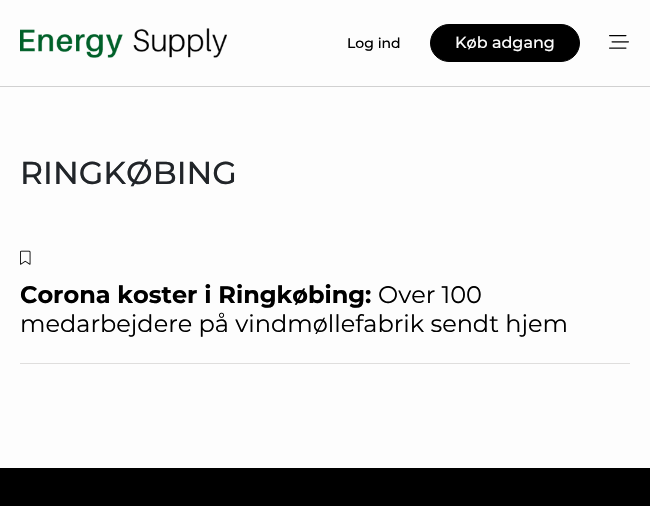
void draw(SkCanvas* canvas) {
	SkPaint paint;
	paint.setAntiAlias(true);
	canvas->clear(0xfffdfdfd);
	paint.setColor(0xffd1d1d1);
	canvas->drawRect(SkRect::MakeXYWH(0, 86, 650, 1), paint);
	canvas->drawImageRect(SkImages::DeferredFromEncodedData(SkData::MakeFromFileName("img1.png")), SkRect::MakeXYWH(20, 28, 207, 30), SkSamplingOptions());
	SkFont f1(fontMgr->matchFamilyStyle("Montserrat", SkFontStyle(500, SkFontStyle::kNormal_Width, SkFontStyle::kUpright_Slant)), 14);
	f1.setSubpixel(true);
	paint.setColor(0xff000000);
	canvas->drawString("Log ind", 347, 48, f1, paint);
	canvas->drawRoundRect(SkRect::MakeXYWH(430.5, 24.5, 149, 37), 18.5, 18.5, paint);
	paint.setStroke(true);
	paint.setStrokeWidth(1);
	canvas->drawRoundRect(SkRect::MakeXYWH(430.5, 24.5, 149, 37), 18.5, 18.5, paint);
	SkFont f2(fontMgr->matchFamilyStyle("Montserrat", SkFontStyle(500, SkFontStyle::kNormal_Width, SkFontStyle::kUpright_Slant)), 16);
	f2.setSubpixel(true);
	paint.setStroke(false);
	paint.setColor(0xfffdfdfd);
	canvas->drawString("Køb adgang", 455, 48, f2, paint);
	canvas->drawImageRect(SkImages::DeferredFromEncodedData(SkData::MakeFromFileName("img2.png")), SkRect::MakeXYWH(609, 35, 20, 14), SkSamplingOptions());
	SkFont f3(fontMgr->matchFamilyStyle("Montserrat", SkFontStyle(500, SkFontStyle::kNormal_Width, SkFontStyle::kUpright_Slant)), 31.75);
	f3.setSubpixel(true);
	paint.setColor(0xff212529);
	canvas->drawString("RINGKØBING", 20, 184, f3, paint);
	canvas->drawImageRect(SkImages::DeferredFromEncodedData(SkData::MakeFromFileName("img3.png")), SkRect::MakeXYWH(20, 250, 11, 15), SkSamplingOptions());
	SkFont f4(fontMgr->matchFamilyStyle("Montserrat", SkFontStyle::Bold()), 24);
	f4.setSubpixel(true);
	paint.setColor(0xff000000);
	canvas->drawString("Corona koster i Ringkøbing:", 20, 303, f4, paint);
	SkFont f5(fontMgr->matchFamilyStyle("Montserrat", SkFontStyle::Normal()), 24);
	f5.setSubpixel(true);
	canvas->drawString("Over 100", 378, 303, f5, paint);
	canvas->drawString("medarbejdere på vindmøllefabrik sendt hjem", 20, 332, f5, paint);
	paint.setColor(0xffdfdedd);
	canvas->drawRect(SkRect::MakeXYWH(20, 363, 610, 1), paint);
	paint.setColor(0xff000000);
	canvas->drawRect(SkRect::MakeXYWH(0, 468, 650, 38), paint);
}
